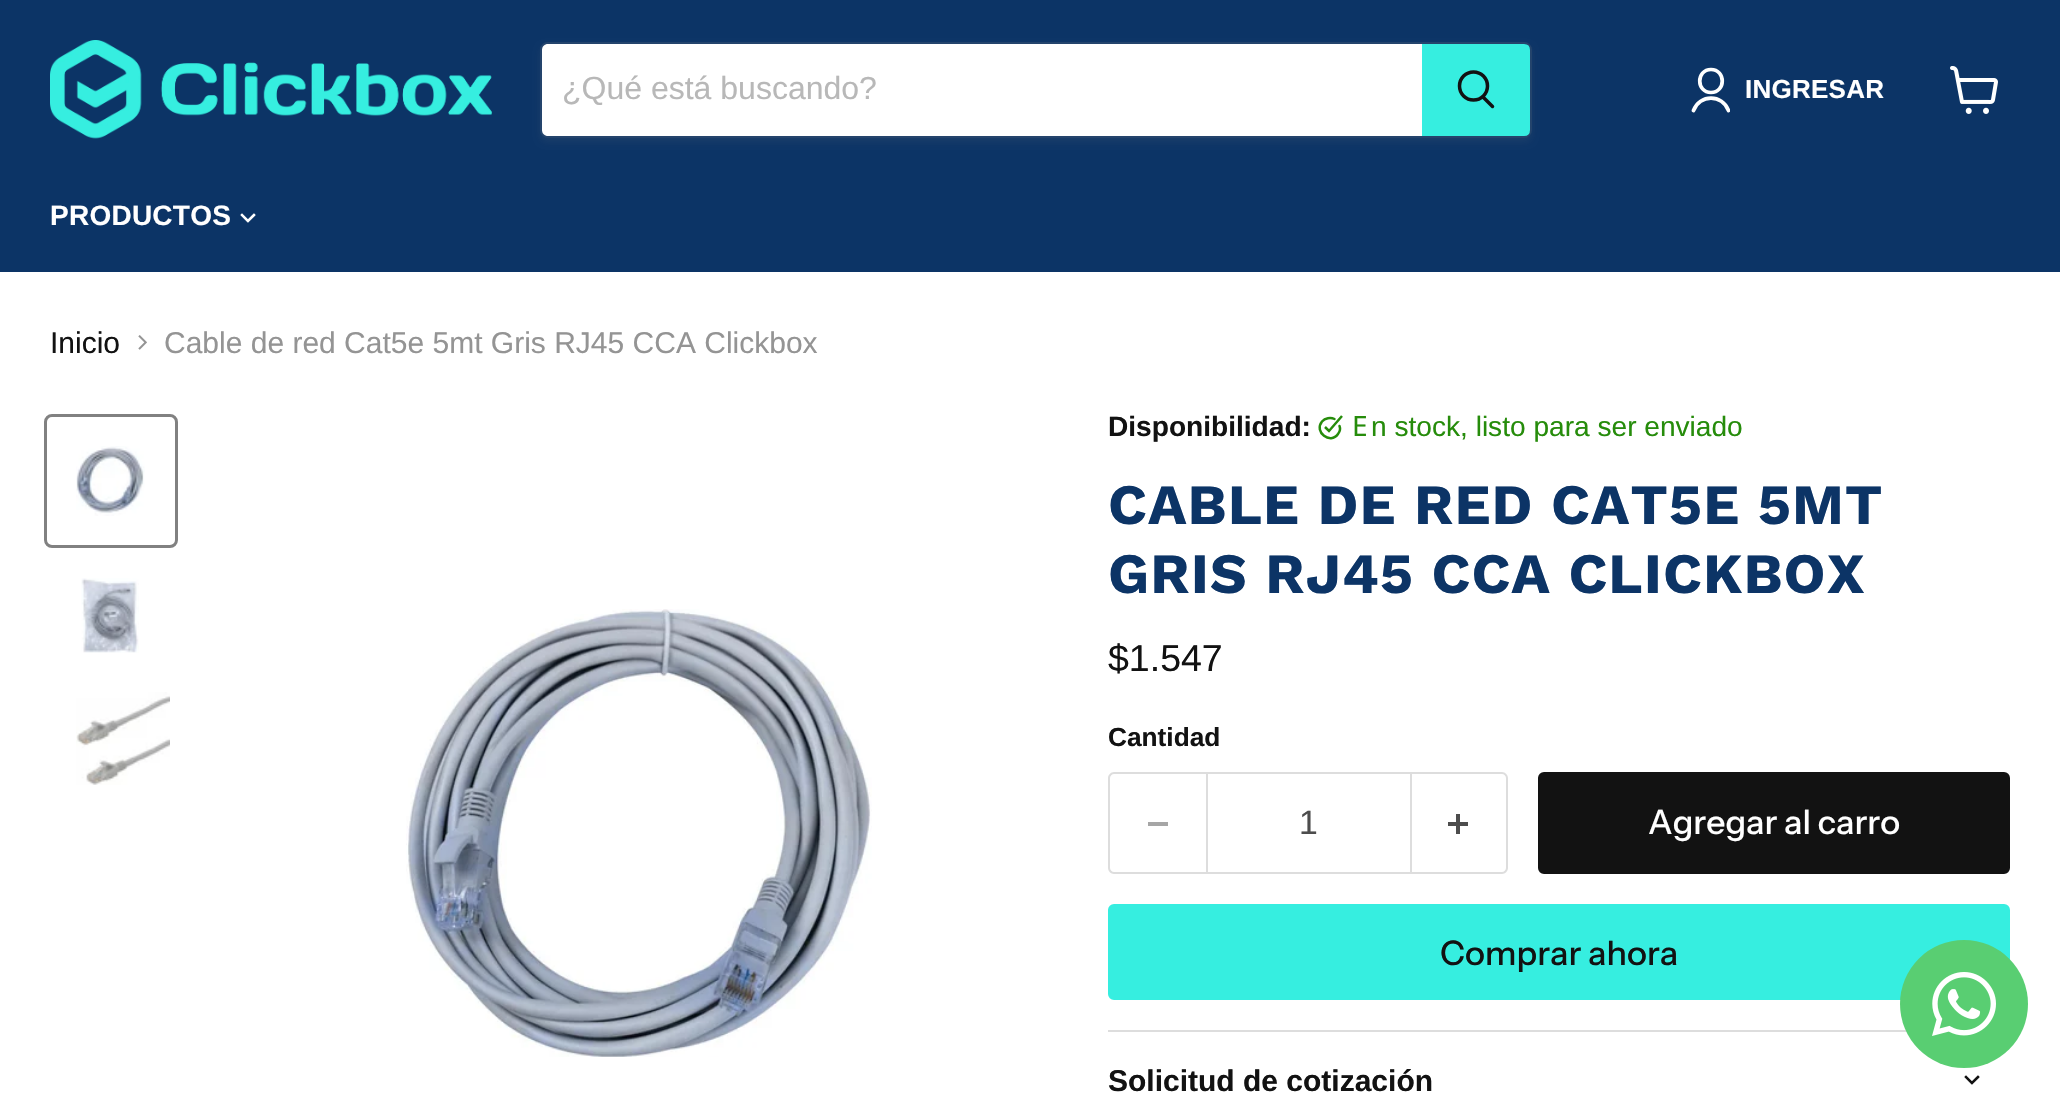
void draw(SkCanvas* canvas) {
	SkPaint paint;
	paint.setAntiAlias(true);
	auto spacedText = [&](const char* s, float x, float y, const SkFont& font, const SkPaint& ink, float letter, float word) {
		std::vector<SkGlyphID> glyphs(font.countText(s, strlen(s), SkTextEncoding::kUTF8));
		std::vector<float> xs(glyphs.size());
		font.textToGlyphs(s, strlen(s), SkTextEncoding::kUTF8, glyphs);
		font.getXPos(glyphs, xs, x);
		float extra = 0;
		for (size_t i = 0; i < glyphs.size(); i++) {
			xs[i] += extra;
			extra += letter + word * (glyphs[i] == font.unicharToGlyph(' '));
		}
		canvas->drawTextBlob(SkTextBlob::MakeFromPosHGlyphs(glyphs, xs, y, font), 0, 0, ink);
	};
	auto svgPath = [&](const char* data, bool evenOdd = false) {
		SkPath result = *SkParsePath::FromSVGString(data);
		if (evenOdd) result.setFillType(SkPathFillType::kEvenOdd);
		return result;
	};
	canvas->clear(0xffffffff);
	paint.setColor(0xff0c3466);
	canvas->drawRect(SkRect::MakeXYWH(0, 0, 2060, 272), paint);
	canvas->drawImageRect(SkImages::DeferredFromEncodedData(SkData::MakeFromFileName("img1.png")), SkRect::MakeXYWH(50, 40, 442, 99), SkSamplingOptions());
	canvas->save();
	canvas->clipPath(svgPath("M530 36H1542V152H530ZM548 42H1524C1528.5 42 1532 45.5 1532 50V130C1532 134.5 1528.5 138 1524 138H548C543.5 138 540 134.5 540 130V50C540 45.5 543.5 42 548 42Z", true), true);
	paint.setColor(0x1c808080);
	paint.setMaskFilter(SkMaskFilter::MakeBlur(kNormal_SkBlurStyle, 3));
	canvas->drawRoundRect(SkRect::MakeXYWH(540, 46, 992, 96), 8, 8, paint);
	paint.setMaskFilter(nullptr);
	canvas->restore();
	paint.setStroke(true);
	paint.setStrokeWidth(2);
	paint.setColor(0x33808080);
	canvas->drawRoundRect(SkRect::MakeXYWH(541, 43, 990, 94), 7, 7, paint);
	paint.setStroke(false);
	paint.setColor(0xffffffff);
	canvas->drawPath(svgPath("M548 44H1422V136H548C544.5 136 542 133.5 542 130V50C542 46.5 544.5 44 548 44Z"), paint);
	SkFont f1(fontMgr->matchFamilyStyle("Liberation Sans", SkFontStyle::Normal()), 32);
	f1.setSubpixel(true);
	paint.setColor(0xffb8b8b8);
	canvas->drawString("¿Qué está buscando?", 562, 99, f1, paint);
	paint.setColor(0xff36eee0);
	canvas->drawPath(svgPath("M1423 45H1524C1527 45 1529 47 1529 50V130C1529 133 1527 135 1524 135H1423Z"), paint);
	paint.setStroke(true);
	canvas->drawPath(svgPath("M1423 45H1524C1527 45 1529 47 1529 50V130C1529 133 1527 135 1524 135H1423Z"), paint);
	paint.setStrokeWidth(3.5);
	paint.setStrokeCap(SkPaint::kRound_Cap);
	paint.setColor(0xff121212);
	canvas->drawPath(svgPath("M1492.5 106.5L1483 97"), paint);
	paint.setStrokeCap(SkPaint::kButt_Cap);
	canvas->drawCircle(1473.5, 86, 14, paint);
	paint.setStrokeWidth(3.7);
	paint.setStrokeCap(SkPaint::kRound_Cap);
	paint.setStrokeJoin(SkPaint::kRound_Join);
	paint.setColor(0xffffffff);
	canvas->drawPath(svgPath("M1711 92.5C1726 92.5 1726 69.5 1711 69.5C1696 69.5 1696 92.5 1711 92.5Z"), paint);
	canvas->save();
	canvas->clipRect(SkRect::MakeXYWH(1690, 66, 40, 48));
	canvas->drawPath(svgPath("M1728.5 110.5C1722.5 94 1699.5 94 1693.5 110.5"), paint);
	canvas->restore();
	SkFont f2(fontMgr->matchFamilyStyle("Liberation Sans", SkFontStyle::Bold()), 26);
	f2.setSubpixel(true);
	paint.setStroke(false);
	spacedText("INGRESAR", 1745, 98, f2, paint, 0.25, 0);
	canvas->drawImageRect(SkImages::DeferredFromEncodedData(SkData::MakeFromFileName("img2.png")), SkRect::MakeXYWH(1950, 66, 48, 48), SkSamplingOptions());
	SkFont f3(fontMgr->matchFamilyStyle("Liberation Sans", SkFontStyle::Bold()), 28);
	f3.setSubpixel(true);
	spacedText("PRODUCTOS", 50, 225, f3, paint, 0.25, 0);
	paint.setStroke(true);
	paint.setStrokeWidth(2.5);
	paint.setStrokeCap(SkPaint::kSquare_Cap);
	paint.setStrokeJoin(SkPaint::kMiter_Join);
	canvas->drawPath(svgPath("M248 221L254 215M248 221L242 215"), paint);
	SkFont f4(fontMgr->matchFamilyStyle("Liberation Sans", SkFontStyle::Normal()), 30);
	f4.setSubpixel(true);
	paint.setStroke(false);
	paint.setColor(0xff121212);
	canvas->drawString("Inicio", 50, 353, f4, paint);
	canvas->drawImageRect(SkImages::DeferredFromEncodedData(SkData::MakeFromFileName("img3.png")), SkRect::MakeXYWH(138, 335, 9, 15), SkSamplingOptions());
	paint.setColor(0xff949494);
	canvas->drawString("Cable de red Cat5e 5mt Gris RJ45 CCA Clickbox", 164, 353, f4, paint);
	paint.setStroke(true);
	paint.setStrokeWidth(3);
	paint.setStrokeCap(SkPaint::kButt_Cap);
	paint.setColor(0xff818181);
	canvas->drawRoundRect(SkRect::MakeXYWH(45.5, 415.5, 131, 131), 6.5, 6.5, paint);
	canvas->drawImageRect(SkImages::DeferredFromEncodedData(SkData::MakeFromFileName("img4.png")), SkRect::MakeXYWH(76, 446, 69, 70), SkSamplingOptions());
	canvas->drawImageRect(SkImages::DeferredFromEncodedData(SkData::MakeFromFileName("img5.png")), SkRect::MakeXYWH(81, 578, 58, 75), SkSamplingOptions());
	canvas->drawImageRect(SkImages::DeferredFromEncodedData(SkData::MakeFromFileName("img6.png")), SkRect::MakeXYWH(76, 692, 94, 93), SkSamplingOptions());
	canvas->drawImageRect(SkImages::DeferredFromEncodedData(SkData::MakeFromFileName("img7.png")), SkRect::MakeXYWH(406, 609, 466, 448), SkSamplingOptions());
	SkFont f5(fontMgr->matchFamilyStyle("Liberation Sans", SkFontStyle::Bold()), 28.1);
	f5.setSubpixel(true);
	paint.setStroke(false);
	paint.setColor(0xff121212);
	canvas->drawString("Disponibilidad:", 1108, 436, f5, paint);
	paint.setStroke(true);
	paint.setStrokeWidth(2.5);
	paint.setColor(0xff268c0b);
	canvas->drawPath(svgPath("M1325 427L1329 431L1342 416"), paint);
	paint.setStrokeCap(SkPaint::kRound_Cap);
	paint.setStrokeJoin(SkPaint::kRound_Join);
	canvas->drawPath(svgPath("M1339.5 426C1340.5 428.5 1340 431.5 1338 434C1330.5 445 1313.5 432 1322 421.5C1325 418 1330.5 417 1334.5 419"), paint);
	SkFont f6(fontMgr->matchFamilyStyle("Noto Sans", SkFontStyle::Normal()), 28.1);
	f6.setSubpixel(true);
	paint.setStroke(false);
	canvas->drawString("E", 1352, 436, f6, paint);
	SkFont f7(fontMgr->matchFamilyStyle("Liberation Sans", SkFontStyle::Normal()), 28.1);
	f7.setSubpixel(true);
	canvas->drawString("n stock, listo para ser enviado", 1371, 436, f7, paint);
	SkFont f8(fontMgr->matchFamilyStyle("Work Sans", SkFontStyle::Bold()), 57);
	f8.setSubpixel(true);
	paint.setColor(0xff0c3466);
	spacedText("CABLE DE RED CAT5E 5MT", 1108, 524, f8, paint, 1.1, 0);
	spacedText("GRIS RJ45 CCA CLICKBOX", 1108, 593, f8, paint, 1.1, 0);
	SkFont f9(fontMgr->matchFamilyStyle("Liberation Sans", SkFontStyle::Normal()), 37.5);
	f9.setSubpixel(true);
	paint.setColor(0xff121212);
	canvas->drawString("$1.547", 1108, 671, f9, paint);
	SkFont f10(fontMgr->matchFamilyStyle("Liberation Sans", SkFontStyle::Bold()), 26.25);
	f10.setSubpixel(true);
	canvas->drawString("Cantidad", 1108, 746, f10, paint);
	paint.setColor(0xffdddddd);
	canvas->drawPath(svgPath("M1114 772H1206V874H1114C1111 874 1108 871 1108 868V778C1108 775 1111 772 1114 772ZM1114 774H1206V872H1114C1112 872 1110 870 1110 868V778C1110 776 1112 774 1114 774Z", true), paint);
	paint.setColor(0xffa6a6a6);
	canvas->drawRect(SkRect::MakeXYWH(1148, 822, 20, 4), paint);
	paint.setStroke(true);
	paint.setStrokeWidth(2);
	paint.setStrokeCap(SkPaint::kButt_Cap);
	paint.setStrokeJoin(SkPaint::kMiter_Join);
	paint.setColor(0xffdddddd);
	canvas->drawRect(SkRect::MakeXYWH(1207, 773, 204, 100), paint);
	SkFont f11(fontMgr->matchFamilyStyle("Liberation Sans", SkFontStyle::Normal()), 33.75);
	f11.setSubpixel(true);
	paint.setStroke(false);
	paint.setColor(0xff4d4d4d);
	canvas->drawString("1", 1299, 834, f11, paint);
	paint.setColor(0xffdddddd);
	canvas->drawPath(svgPath("M1412 772H1502C1505 772 1508 775 1508 778V868C1508 871 1505 874 1502 874H1412ZM1412 774H1502C1504 774 1506 776 1506 778V868C1506 870 1504 872 1502 872H1412Z", true), paint);
	canvas->drawImageRect(SkImages::DeferredFromEncodedData(SkData::MakeFromFileName("img8.png")), SkRect::MakeXYWH(1448, 814, 20, 20), SkSamplingOptions());
	paint.setColor(0xff121212);
	canvas->drawRoundRect(SkRect::MakeXYWH(1539, 773, 470, 100), 5, 5, paint);
	paint.setStroke(true);
	canvas->drawRoundRect(SkRect::MakeXYWH(1539, 773, 470, 100), 5, 5, paint);
	SkFont f12(fontMgr->matchFamilyStyle("Instrument Sans", SkFontStyle(500, SkFontStyle::kNormal_Width, SkFontStyle::kUpright_Slant)), 33.75);
	f12.setSubpixel(true);
	paint.setStroke(false);
	paint.setColor(0xffffffff);
	canvas->drawString("Agregar al carro", 1648, 834, f12, paint);
	paint.setColor(0xff36eee0);
	canvas->drawRoundRect(SkRect::MakeXYWH(1109, 905, 900, 94), 5, 5, paint);
	paint.setStroke(true);
	canvas->drawRoundRect(SkRect::MakeXYWH(1109, 905, 900, 94), 5, 5, paint);
	paint.setStroke(false);
	paint.setColor(0xff121212);
	canvas->drawString("Comprar ahora", 1440, 965, f12, paint);
	paint.setColor(0xffdddddd);
	canvas->drawRect(SkRect::MakeXYWH(1108, 1030, 799, 2), paint);
	SkFont f13(fontMgr->matchFamilyStyle("Liberation Sans", SkFontStyle::Bold()), 30);
	f13.setSubpixel(true);
	paint.setColor(0xff121212);
	canvas->drawString("Solicitud de cotización", 1108, 1091, f13, paint);
	paint.setStroke(true);
	paint.setStrokeWidth(2.5);
	paint.setStrokeCap(SkPaint::kSquare_Cap);
	canvas->drawPath(svgPath("M1972 1083L1978 1077M1972 1083L1966 1077"), paint);
	paint.setStroke(false);
	paint.setColor(0xff59ce72);
	canvas->drawCircle(1964, 1004, 64, paint);
	canvas->drawImageRect(SkImages::DeferredFromEncodedData(SkData::MakeFromFileName("img9.png")), SkRect::MakeXYWH(1932, 972, 64, 64), SkSamplingOptions());
}
